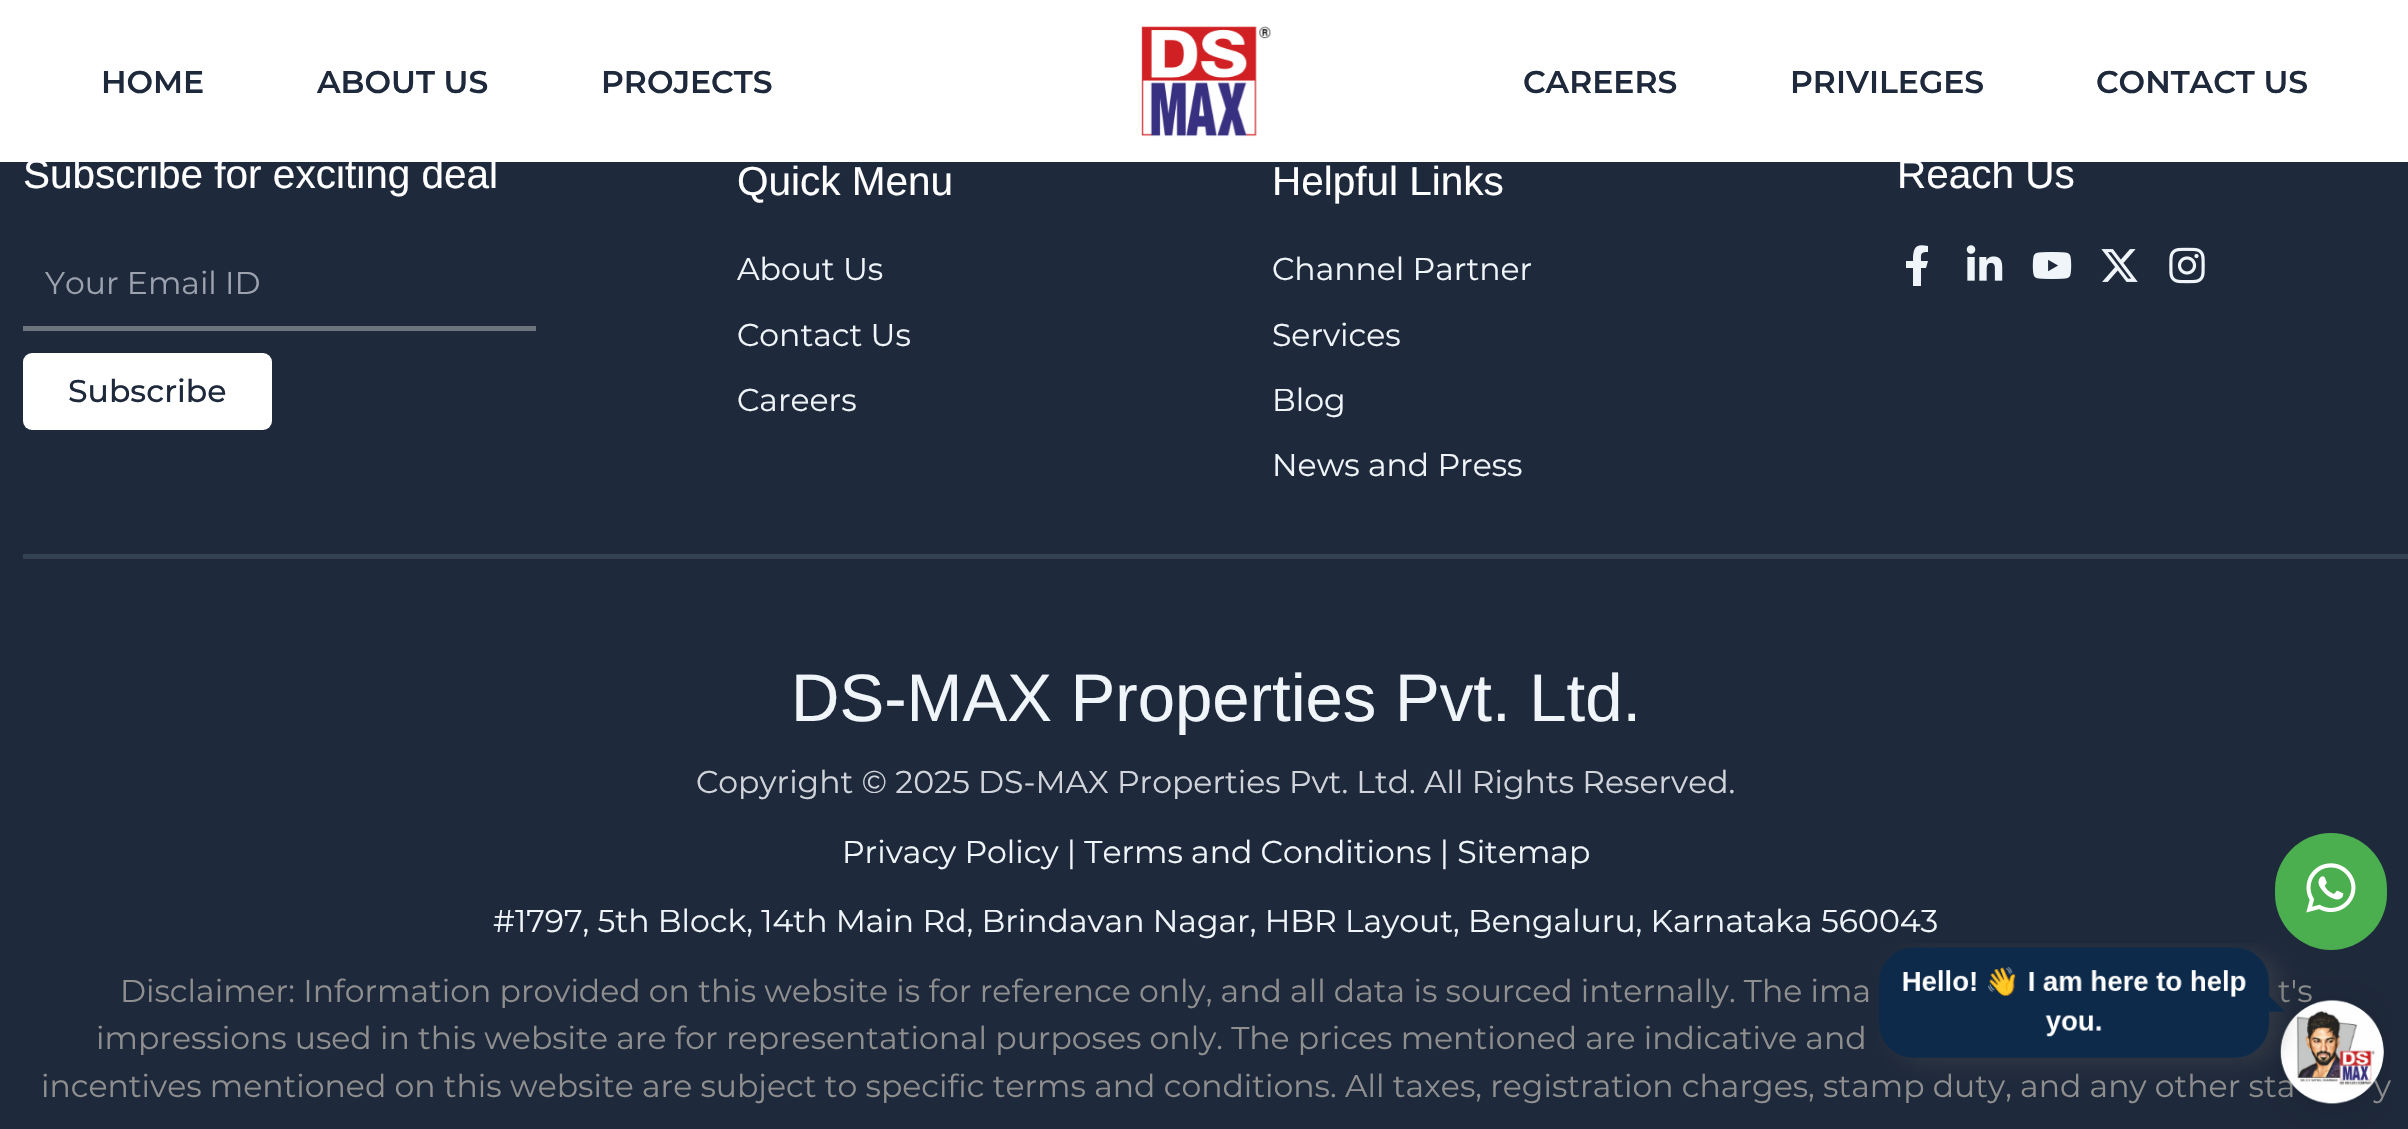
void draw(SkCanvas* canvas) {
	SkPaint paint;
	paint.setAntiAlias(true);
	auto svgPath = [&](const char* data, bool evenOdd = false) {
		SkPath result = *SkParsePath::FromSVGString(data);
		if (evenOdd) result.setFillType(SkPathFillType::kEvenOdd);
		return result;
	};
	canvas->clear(0xff1e293b);
	paint.setColor(0xffffffff);
	canvas->drawRect(SkRect::MakeXYWH(0, 0, 2408, 162), paint);
	SkFont f1(fontMgr->matchFamilyStyle("Montserrat", SkFontStyle(600, SkFontStyle::kNormal_Width, SkFontStyle::kUpright_Slant)), 31.5);
	f1.setSubpixel(true);
	paint.setColor(0xff1e293b);
	canvas->drawString("HOME", 101, 93, f1, paint);
	canvas->drawString("ABOUT US", 317, 93, f1, paint);
	canvas->drawString("PROJECTS", 601, 93, f1, paint);
	canvas->drawImageRect(SkImages::DeferredFromEncodedData(SkData::MakeFromFileName("img1.png")), SkRect::MakeXYWH(1141, 26, 130, 111), SkSamplingOptions());
	canvas->drawString("CAREERS", 1523, 93, f1, paint);
	canvas->drawString("PRIVILEGES", 1790, 93, f1, paint);
	canvas->drawString("CONTACT US", 2096, 93, f1, paint);
	SkFont f2(fontMgr->matchFamilyStyle("Liberation Sans", SkFontStyle::Normal()), 40.5);
	f2.setSubpixel(true);
	paint.setColor(0xffffffff);
	canvas->drawString("Subscribe for exciting deal", 23, 188, f2, paint);
	paint.setColor(0xff6c757d);
	canvas->drawRect(SkRect::MakeXYWH(23, 326, 513, 5), paint);
	SkFont f3(fontMgr->matchFamilyStyle("Montserrat", SkFontStyle::Normal()), 31.5);
	f3.setSubpixel(true);
	paint.setColor(0xff9ca3af);
	canvas->drawString("Your Email ID", 45, 294, f3, paint);
	paint.setColor(0xffffffff);
	canvas->drawRoundRect(SkRect::MakeXYWH(23, 353, 249, 77), 9, 9, paint);
	SkFont f4(fontMgr->matchFamilyStyle("Montserrat", SkFontStyle(500, SkFontStyle::kNormal_Width, SkFontStyle::kUpright_Slant)), 31.5);
	f4.setSubpixel(true);
	paint.setColor(0xff1e293b);
	canvas->drawString("Subscribe", 68, 402, f4, paint);
	paint.setColor(0xffffffff);
	canvas->drawString("Quick Menu", 737, 195, f2, paint);
	paint.setColor(0xfff0f5fa);
	canvas->drawString("About Us", 737, 280, f3, paint);
	canvas->drawString("Contact Us", 737, 346, f3, paint);
	canvas->drawString("Careers", 737, 411, f3, paint);
	paint.setColor(0xffffffff);
	canvas->drawString("Helpful Links", 1272, 195, f2, paint);
	paint.setColor(0xfff0f5fa);
	canvas->drawString("Channel Partner", 1272, 280, f3, paint);
	canvas->drawString("Services", 1272, 346, f3, paint);
	canvas->drawString("Blog", 1272, 411, f3, paint);
	canvas->drawString("News and Press", 1272, 476, f3, paint);
	paint.setColor(0xffffffff);
	canvas->drawString("Reach Us", 1897, 188, f2, paint);
	paint.setColor(0xfff0f5fa);
	canvas->drawPath(svgPath("M1926 268L1928 261H1921C1921 254 1920 252 1928 252V246C1915 243 1913 248 1913 261H1906V268H1913V286H1921V268Z"), paint);
	canvas->drawImageRect(SkImages::DeferredFromEncodedData(SkData::MakeFromFileName("img2.png")), SkRect::MakeXYWH(1966, 245, 37, 36), SkSamplingOptions());
	canvas->drawImageRect(SkImages::DeferredFromEncodedData(SkData::MakeFromFileName("img3.png")), SkRect::MakeXYWH(2032, 252, 40, 27), SkSamplingOptions());
	canvas->drawImageRect(SkImages::DeferredFromEncodedData(SkData::MakeFromFileName("img4.png")), SkRect::MakeXYWH(2101, 249, 37, 33), SkSamplingOptions());
	canvas->drawImageRect(SkImages::DeferredFromEncodedData(SkData::MakeFromFileName("img5.png")), SkRect::MakeXYWH(2169, 247, 36, 37), SkSamplingOptions());
	paint.setColor(0xff334155);
	canvas->drawRect(SkRect::MakeXYWH(23, 554, 2385, 5), paint);
	SkFont f5(fontMgr->matchFamilyStyle("Liberation Sans", SkFontStyle::Normal()), 67.1);
	f5.setSubpixel(true);
	paint.setColor(0xfff0f5fa);
	canvas->drawString("DS-MAX Properties Pvt. Ltd.", 791, 721, f5, paint);
	paint.setColor(0xffd1d5db);
	canvas->drawString("Copyright © 2025 DS-MAX Properties Pvt. Ltd. All Rights Reserved.", 696, 793, f3, paint);
	paint.setColor(0xfff0f5fa);
	canvas->drawString("Privacy Policy | Terms and Conditions | Sitemap", 842, 863, f3, paint);
	canvas->drawString("#1797, 5th Block, 14th Main Rd, Brindavan Nagar, HBR Layout, Bengaluru, Karnataka 560043", 493, 932, f3, paint);
	paint.setColor(0xff8f8f8f);
	canvas->drawString("Disclaimer: Information provided on this website is for reference only, and all data is sourced internally. The ima", 120, 1002, f3, paint);
	canvas->drawString("t's", 2278, 1002, f3, paint);
	canvas->drawString("impressions used in this website are for representational purposes only. The prices mentioned are indicative and", 96, 1049, f3, paint);
	canvas->drawString("incentives mentioned on this website are subject to specific terms and conditions. All taxes, registration charges, stamp duty, and any other sta", 41, 1097, f3, paint);
	canvas->drawString("y", 2374, 1097, f3, paint);
	paint.setColor(0xff4bae4f);
	canvas->drawRoundRect(SkRect::MakeXYWH(2275, 833, 112, 117), 56, 56, paint);
	canvas->drawImageRect(SkImages::DeferredFromEncodedData(SkData::MakeFromFileName("img6.png")), SkRect::MakeXYWH(2306, 863, 50, 50), SkSamplingOptions());
	canvas->drawImageRect(SkImages::DeferredFromEncodedData(SkData::MakeFromFileName("img7.png")), SkRect::MakeXYWH(1878, 943, 513, 185), SkSamplingOptions());
}
